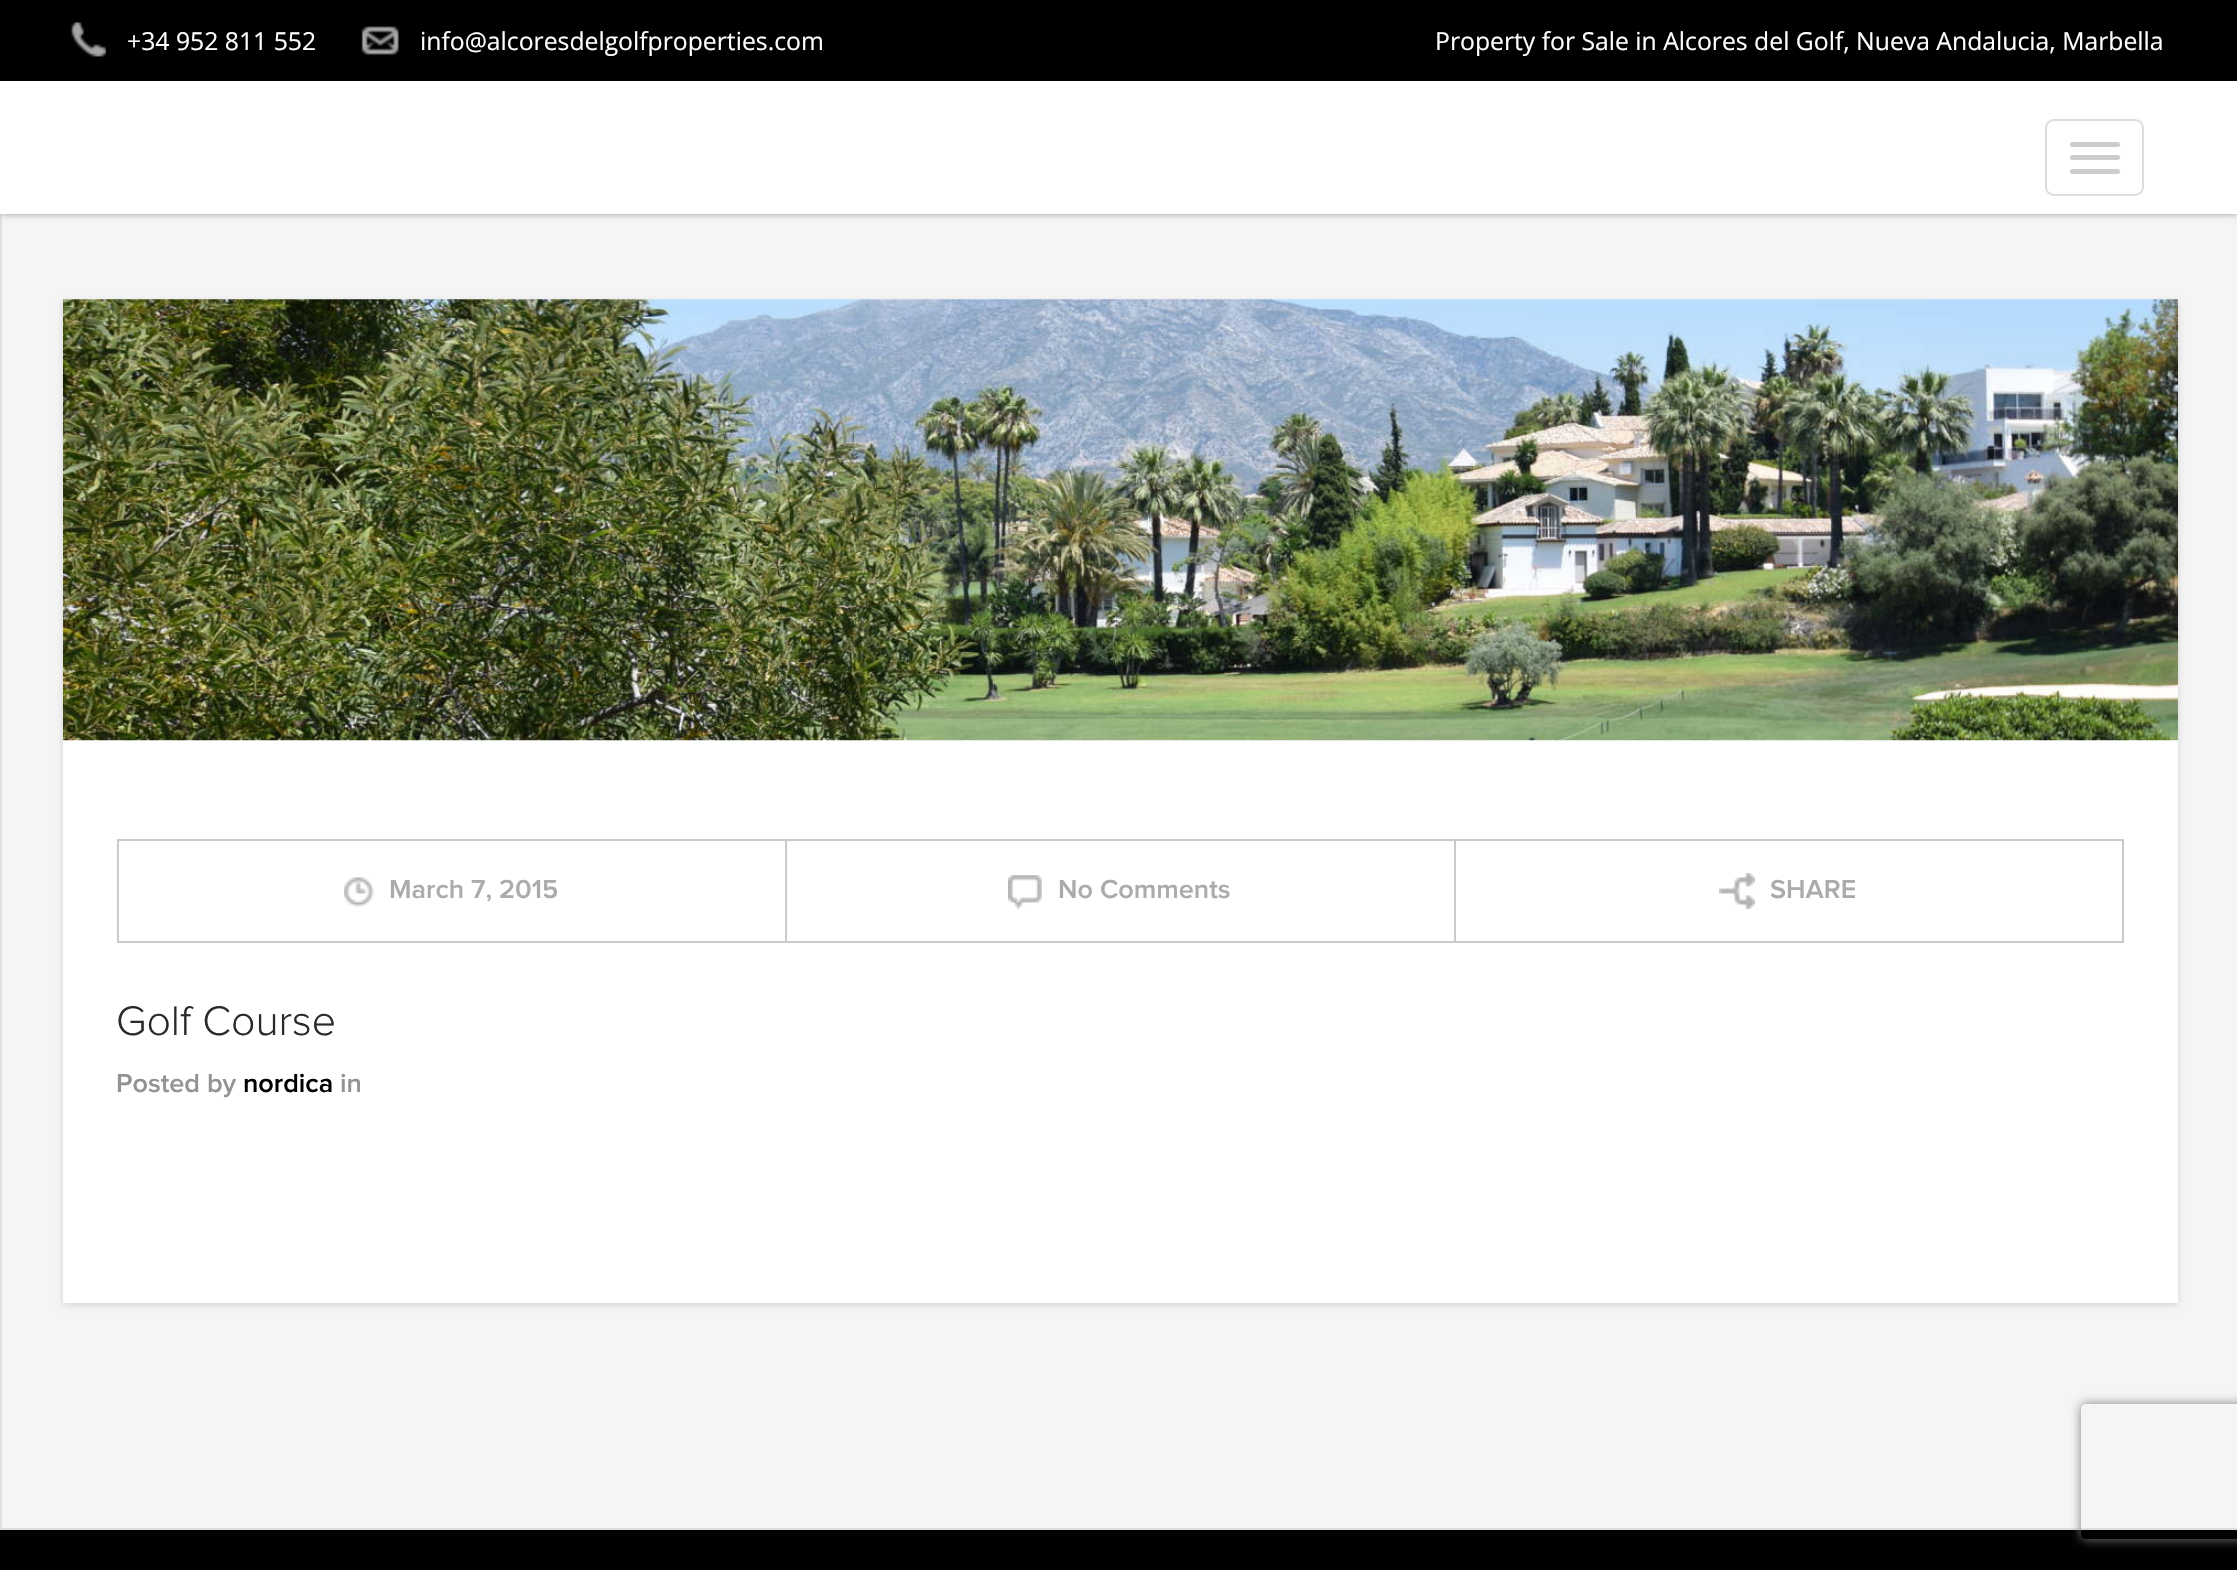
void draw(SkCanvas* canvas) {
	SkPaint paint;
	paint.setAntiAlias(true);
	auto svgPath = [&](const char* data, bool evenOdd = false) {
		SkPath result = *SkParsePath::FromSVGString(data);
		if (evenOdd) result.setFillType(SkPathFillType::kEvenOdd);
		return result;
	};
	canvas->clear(0xfff5f5f5);
	paint.setStroke(true);
	paint.setStrokeWidth(2);
	paint.setColor(0xffdedede);
	canvas->drawRect(SkRect::MakeXYWH(1, 141, 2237, 1388), paint);
	paint.setStroke(false);
	paint.setColor(0xff9c9c9c);
	paint.setMaskFilter(SkMaskFilter::MakeBlur(kNormal_SkBlurStyle, 3.5));
	canvas->drawRect(SkRect::MakeXYWH(0, 0, 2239, 214), paint);
	paint.setMaskFilter(nullptr);
	paint.setColor(0xffffffff);
	canvas->drawRect(SkRect::MakeXYWH(0, 81, 2237, 133), paint);
	paint.setColor(0xff000000);
	canvas->drawRect(SkRect::MakeXYWH(0, 0, 2237, 81), paint);
	canvas->drawImageRect(SkImages::DeferredFromEncodedData(SkData::MakeFromFileName("img1.png")), SkRect::MakeXYWH(70, 22, 36, 35), SkSamplingOptions());
	SkFont f1(fontMgr->matchFamilyStyle("Open Sans", SkFontStyle::Normal()), 24.75);
	f1.setSubpixel(true);
	paint.setColor(0xffffffff);
	canvas->drawString("+34 952 811 552", 127, 50, f1, paint);
	canvas->drawImageRect(SkImages::DeferredFromEncodedData(SkData::MakeFromFileName("img2.png")), SkRect::MakeXYWH(361, 26, 38, 30), SkSamplingOptions());
	canvas->drawString("info@alcoresdelgolfproperties.com", 420, 50, f1, paint);
	canvas->drawString("Property for Sale in Alcores del Golf, Nueva Andalucia, Marbella", 1435, 50, f1, paint);
	paint.setStroke(true);
	paint.setColor(0xffdddddd);
	canvas->drawRoundRect(SkRect::MakeXYWH(2046, 120, 97, 75), 8, 8, paint);
	paint.setStroke(false);
	paint.setColor(0xffcccccc);
	canvas->drawRoundRect(SkRect::MakeXYWH(2070, 142, 50, 5), 2.5, 2.5, paint);
	canvas->drawRoundRect(SkRect::MakeXYWH(2070, 155, 50, 5), 2.5, 2.5, paint);
	canvas->drawRoundRect(SkRect::MakeXYWH(2070, 169, 50, 5), 2.5, 2.5, paint);
	paint.setColor(0xffd4d4d4);
	paint.setMaskFilter(SkMaskFilter::MakeBlur(kNormal_SkBlurStyle, 3.5));
	canvas->drawRect(SkRect::MakeXYWH(63, 302, 2115, 1003), paint);
	paint.setMaskFilter(nullptr);
	paint.setColor(0xffffffff);
	canvas->drawRect(SkRect::MakeXYWH(63, 299, 2115, 1004), paint);
	canvas->drawImageRect(SkImages::DeferredFromEncodedData(SkData::MakeFromFileName("img3.png")), SkRect::MakeXYWH(63, 299, 2115, 442), SkSamplingOptions());
	paint.setColor(0xffcacaca);
	canvas->drawRect(SkRect::MakeXYWH(117, 839, 2007, 2), paint);
	canvas->drawRect(SkRect::MakeXYWH(2122, 839, 2, 104), paint);
	canvas->drawRect(SkRect::MakeXYWH(117, 941, 2007, 2), paint);
	canvas->drawRect(SkRect::MakeXYWH(117, 839, 2, 104), paint);
	canvas->drawImageRect(SkImages::DeferredFromEncodedData(SkData::MakeFromFileName("img4.png")), SkRect::MakeXYWH(344, 877, 30, 30), SkSamplingOptions());
	SkFont f2(fontMgr->matchFamilyStyle("Proxima Nova", SkFontStyle(600, SkFontStyle::kNormal_Width, SkFontStyle::kUpright_Slant)), 27);
	f2.setSubpixel(true);
	paint.setColor(0xffababab);
	canvas->drawString("March 7, 2015", 389, 898, f2, paint);
	paint.setColor(0xffcacaca);
	canvas->drawRect(SkRect::MakeXYWH(785, 839, 2, 104), paint);
	canvas->drawImageRect(SkImages::DeferredFromEncodedData(SkData::MakeFromFileName("img5.png")), SkRect::MakeXYWH(1008, 875, 34, 34), SkSamplingOptions());
	paint.setColor(0xffababab);
	canvas->drawString("No Comments", 1058, 898, f2, paint);
	paint.setColor(0xffcacaca);
	canvas->drawRect(SkRect::MakeXYWH(1454, 839, 2, 104), paint);
	canvas->drawImageRect(SkImages::DeferredFromEncodedData(SkData::MakeFromFileName("img6.png")), SkRect::MakeXYWH(1719, 873, 36, 36), SkSamplingOptions());
	paint.setColor(0xffababab);
	canvas->drawString("SHARE", 1770, 898, f2, paint);
	SkFont f3(fontMgr->matchFamilyStyle("Proxima Nova", SkFontStyle(300, SkFontStyle::kNormal_Width, SkFontStyle::kUpright_Slant)), 42.75);
	f3.setSubpixel(true);
	paint.setColor(0xff2a2a2a);
	canvas->drawString("Golf Course", 116, 1035, f3, paint);
	paint.setColor(0xff939393);
	canvas->drawString("Posted by", 116, 1092, f2, paint);
	paint.setColor(0xff000000);
	canvas->drawString("nordica", 243, 1092, f2, paint);
	paint.setColor(0xff939393);
	canvas->drawString("in", 340, 1092, f2, paint);
	paint.setColor(0xff000000);
	canvas->drawRect(SkRect::MakeXYWH(0, 1530, 2237, 40), paint);
	canvas->save();
	canvas->clipPath(svgPath("M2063 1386H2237V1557H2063ZM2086 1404H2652C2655 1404 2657 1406 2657 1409V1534C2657 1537 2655 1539 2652 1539H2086C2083 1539 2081 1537 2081 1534V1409C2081 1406 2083 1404 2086 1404Z", true), true);
	paint.setColor(0xff808080);
	paint.setMaskFilter(SkMaskFilter::MakeBlur(kNormal_SkBlurStyle, 5.5));
	canvas->drawRoundRect(SkRect::MakeXYWH(2081, 1404, 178, 135), 5, 5, paint);
	paint.setMaskFilter(nullptr);
	canvas->restore();
}
